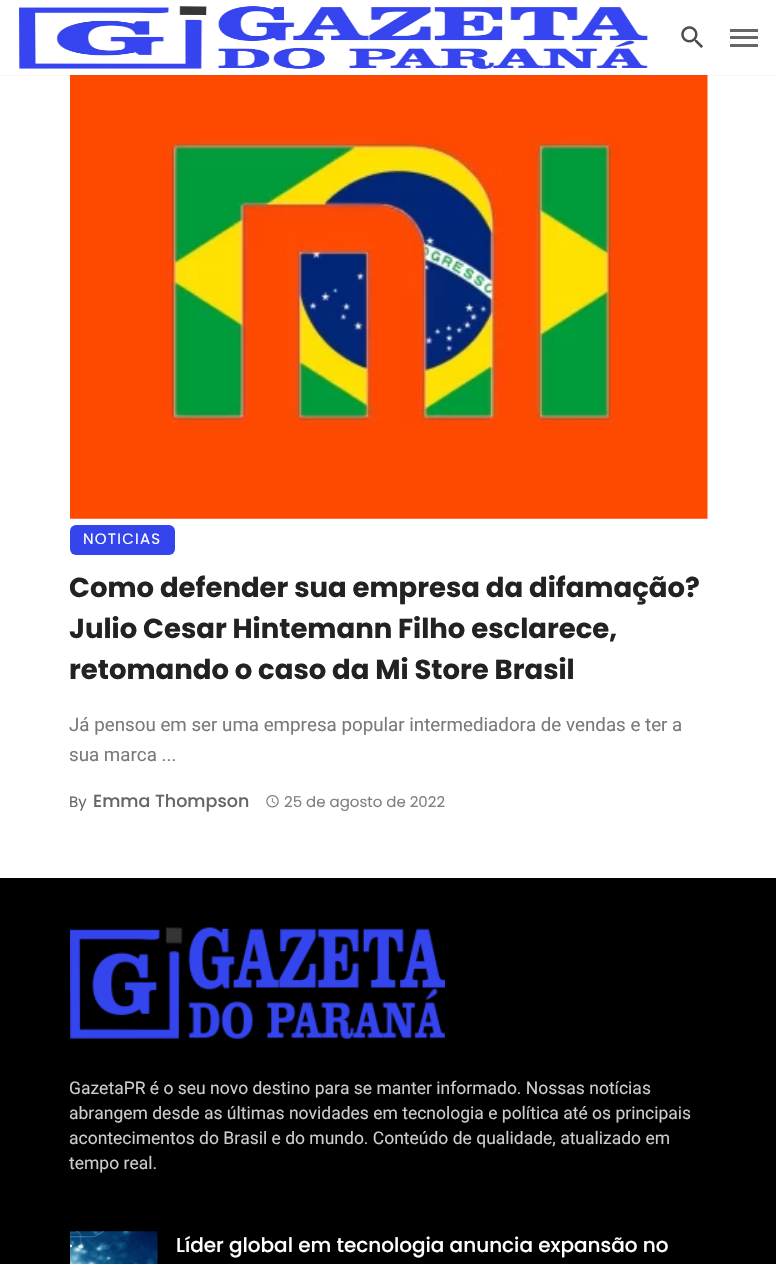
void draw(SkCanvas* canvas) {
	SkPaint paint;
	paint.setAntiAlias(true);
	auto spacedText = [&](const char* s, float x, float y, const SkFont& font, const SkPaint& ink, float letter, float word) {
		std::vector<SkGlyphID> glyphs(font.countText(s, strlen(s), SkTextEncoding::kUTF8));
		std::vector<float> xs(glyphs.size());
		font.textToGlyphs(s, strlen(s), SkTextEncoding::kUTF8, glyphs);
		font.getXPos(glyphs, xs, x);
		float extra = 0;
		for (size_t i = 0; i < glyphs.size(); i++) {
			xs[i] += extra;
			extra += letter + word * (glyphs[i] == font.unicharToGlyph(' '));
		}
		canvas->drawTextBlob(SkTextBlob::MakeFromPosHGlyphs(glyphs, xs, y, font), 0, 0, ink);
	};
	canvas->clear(0xffffffff);
	canvas->drawImageRect(SkImages::DeferredFromEncodedData(SkData::MakeFromFileName("img3.png")), SkRect::MakeXYWH(70, 75, 638, 444), SkSamplingOptions());
	paint.setColor(0x0a000000);
	canvas->drawRect(SkRect::MakeXYWH(0, 75, 776, 1), paint);
	canvas->drawImageRect(SkImages::DeferredFromEncodedData(SkData::MakeFromFileName("img1.png")), SkRect::MakeXYWH(19, 6, 629, 63), SkSamplingOptions());
	canvas->drawImageRect(SkImages::DeferredFromEncodedData(SkData::MakeFromFileName("img2.png")), SkRect::MakeXYWH(681, 26, 22, 22), SkSamplingOptions());
	paint.setColor(0xff676767);
	canvas->drawRect(SkRect::MakeXYWH(730, 36, 28, 3), paint);
	canvas->drawRect(SkRect::MakeXYWH(730, 29, 28, 3), paint);
	canvas->drawRect(SkRect::MakeXYWH(730, 44, 28, 3), paint);
	paint.setColor(0xff3545ee);
	canvas->drawRoundRect(SkRect::MakeXYWH(70, 525, 105, 30), 6, 6, paint);
	SkFont f1(fontMgr->matchFamilyStyle("Poppins", SkFontStyle::Normal()), 15);
	f1.setSubpixel(true);
	paint.setColor(0xffffffff);
	spacedText("NOTICIAS", 83, 544, f1, paint, 1.25, 0);
	SkFont f2(fontMgr->matchFamilyStyle("Poppins", SkFontStyle::Bold()), 27.5);
	f2.setSubpixel(true);
	paint.setColor(0xff222222);
	canvas->drawString("Como defender sua empresa da difamação?", 69, 597, f2, paint);
	canvas->drawString("Julio Cesar Hintemann Filho esclarece,", 69, 638, f2, paint);
	canvas->drawString("retomando o caso da Mi Store Brasil", 69, 679, f2, paint);
	SkFont f3(fontMgr->matchFamilyStyle("Roboto", SkFontStyle::Normal()), 18.75);
	f3.setSubpixel(true);
	paint.setColor(0xff7a7a7a);
	canvas->drawString("Já pensou em ser uma empresa popular intermediadora de vendas e ter a", 69, 731, f3, paint);
	canvas->drawString("sua marca ...", 69, 761, f3, paint);
	paint.setColor(0xff666666);
	canvas->drawString("By", 69, 807, f1, paint);
	SkFont f4(fontMgr->matchFamilyStyle("Poppins", SkFontStyle(500, SkFontStyle::kNormal_Width, SkFontStyle::kUpright_Slant)), 17.5);
	f4.setSubpixel(true);
	canvas->drawString("Emma Thompson", 93, 807, f4, paint);
	canvas->drawImageRect(SkImages::DeferredFromEncodedData(SkData::MakeFromFileName("img4.png")), SkRect::MakeXYWH(266, 795, 13, 13), SkSamplingOptions());
	paint.setColor(0xff808080);
	canvas->drawString("25 de agosto de 2022", 284, 807, f1, paint);
	paint.setColor(0xff000000);
	canvas->drawRect(SkRect::MakeXYWH(0, 878, 776, 386), paint);
	canvas->drawImageRect(SkImages::DeferredFromEncodedData(SkData::MakeFromFileName("img5.png")), SkRect::MakeXYWH(70, 927, 375, 112), SkSamplingOptions());
	SkFont f5(fontMgr->matchFamilyStyle("Roboto", SkFontStyle::Normal()), 17.5);
	f5.setSubpixel(true);
	paint.setColor(0xffcccccc);
	canvas->drawString("GazetaPR é o seu novo destino para se manter informado. Nossas notícias", 69, 1094, f5, paint);
	canvas->drawString("abrangem desde as últimas novidades em tecnologia e política até os principais", 69, 1119, f5, paint);
	canvas->drawString("acontecimentos do Brasil e do mundo. Conteúdo de qualidade, atualizado em", 69, 1144, f5, paint);
	canvas->drawString("tempo real.", 69, 1169, f5, paint);
	canvas->drawImageRect(SkImages::DeferredFromEncodedData(SkData::MakeFromFileName("img6.png")), SkRect::MakeXYWH(70, 1231, 88, 33), SkSamplingOptions());
	SkFont f6(fontMgr->matchFamilyStyle("Poppins", SkFontStyle(500, SkFontStyle::kNormal_Width, SkFontStyle::kUpright_Slant)), 20);
	f6.setSubpixel(true);
	paint.setColor(0xffffffff);
	canvas->drawString("Líder global em tecnologia anuncia expansão no", 176, 1252, f6, paint);
}
